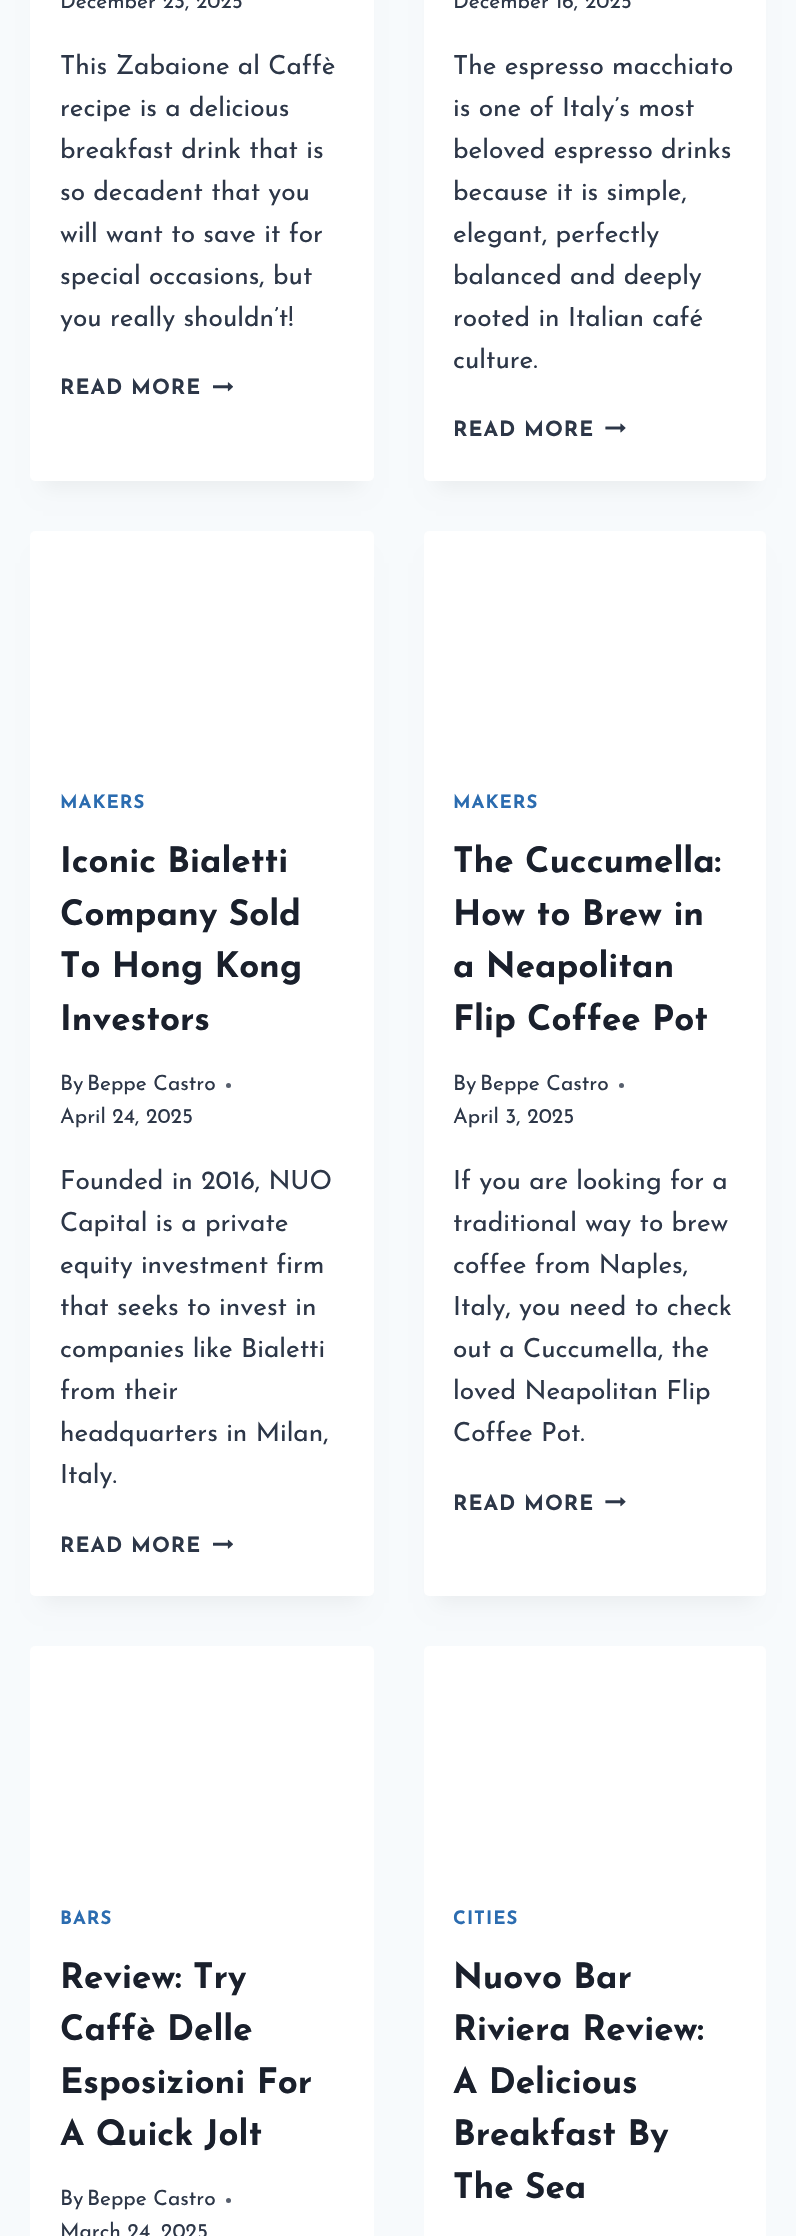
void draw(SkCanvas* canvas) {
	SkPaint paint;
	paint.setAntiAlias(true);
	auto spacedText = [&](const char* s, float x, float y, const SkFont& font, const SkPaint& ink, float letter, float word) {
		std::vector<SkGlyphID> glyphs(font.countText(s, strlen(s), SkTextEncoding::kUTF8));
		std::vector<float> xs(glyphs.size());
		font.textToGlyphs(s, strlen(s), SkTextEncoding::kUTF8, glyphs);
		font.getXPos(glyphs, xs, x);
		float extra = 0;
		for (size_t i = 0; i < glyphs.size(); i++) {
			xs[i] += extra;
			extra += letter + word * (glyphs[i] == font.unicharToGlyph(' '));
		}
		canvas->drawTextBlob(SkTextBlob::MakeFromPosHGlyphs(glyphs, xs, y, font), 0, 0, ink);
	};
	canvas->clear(0xfff7fafc);
	paint.setColor(0x0d000000);
	paint.setMaskFilter(SkMaskFilter::MakeBlur(kNormal_SkBlurStyle, 9.5));
	canvas->drawRect(SkRect::MakeXYWH(43, -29, 318, 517), paint);
	paint.setMaskFilter(nullptr);
	paint.setColor(0xffffffff);
	canvas->drawRoundRect(SkRect::MakeXYWH(30, -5, 344, 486), 5, 5, paint);
	SkFont f1(fontMgr->matchFamilyStyle("Josefin Sans", SkFontStyle::Normal()), 21);
	f1.setSubpixel(true);
	paint.setColor(0xff2d3748);
	canvas->drawString("December 23, 2025", 60, 8, f1, paint);
	SkFont f2(fontMgr->matchFamilyStyle("Josefin Sans", SkFontStyle::Normal()), 26.25);
	f2.setSubpixel(true);
	canvas->drawString("This Zabaione al Caffè", 60, 74, f2, paint);
	canvas->drawString("recipe is a delicious", 60, 116, f2, paint);
	canvas->drawString("breakfast drink that is", 60, 158, f2, paint);
	canvas->drawString("so decadent that you", 60, 200, f2, paint);
	canvas->drawString("will want to save it for", 60, 242, f2, paint);
	canvas->drawString("special occasions, but", 60, 284, f2, paint);
	canvas->drawString("you really shouldn’t!", 60, 326, f2, paint);
	SkFont f3(fontMgr->matchFamilyStyle("Josefin Sans", SkFontStyle::Bold()), 21);
	f3.setSubpixel(true);
	spacedText("READ MORE", 60, 394, f3, paint, 1, 0);
	canvas->drawImageRect(SkImages::DeferredFromEncodedData(SkData::MakeFromFileName("img1.png")), SkRect::MakeXYWH(213, 382, 20, 10), SkSamplingOptions());
	paint.setColor(0x0d000000);
	paint.setMaskFilter(SkMaskFilter::MakeBlur(kNormal_SkBlurStyle, 9.5));
	canvas->drawRect(SkRect::MakeXYWH(436, -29, 318, 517), paint);
	paint.setMaskFilter(nullptr);
	paint.setColor(0xffffffff);
	canvas->drawRoundRect(SkRect::MakeXYWH(424, -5, 342, 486), 5, 5, paint);
	paint.setColor(0xff2d3748);
	canvas->drawString("December 16, 2025", 453, 8, f1, paint);
	canvas->drawString("The espresso macchiato", 453, 74, f2, paint);
	canvas->drawString("is one of Italy’s most", 453, 116, f2, paint);
	canvas->drawString("beloved espresso drinks", 453, 158, f2, paint);
	canvas->drawString("because it is simple,", 453, 200, f2, paint);
	canvas->drawString("elegant, perfectly", 453, 242, f2, paint);
	canvas->drawString("balanced and deeply", 453, 284, f2, paint);
	canvas->drawString("rooted in Italian café", 453, 326, f2, paint);
	canvas->drawString("culture.", 453, 368, f2, paint);
	spacedText("READ MORE", 453, 436, f3, paint, 1, 0);
	canvas->drawImageRect(SkImages::DeferredFromEncodedData(SkData::MakeFromFileName("img2.png")), SkRect::MakeXYWH(605, 423, 21, 10), SkSamplingOptions());
	paint.setColor(0x0d000000);
	paint.setMaskFilter(SkMaskFilter::MakeBlur(kNormal_SkBlurStyle, 9.5));
	canvas->drawRect(SkRect::MakeXYWH(43, 563, 318, 1040), paint);
	paint.setMaskFilter(nullptr);
	paint.setColor(0xffffffff);
	canvas->drawRoundRect(SkRect::MakeXYWH(30, 531, 344, 1065), 5, 5, paint);
	SkFont f4(fontMgr->matchFamilyStyle("Josefin Sans", SkFontStyle::Bold()), 18.5);
	f4.setSubpixel(true);
	paint.setColor(0xff2b6cb0);
	spacedText("MAKERS", 60, 808, f4, paint, 1, 0);
	SkFont f5(fontMgr->matchFamilyStyle("Josefin Sans", SkFontStyle::Bold()), 35);
	f5.setSubpixel(true);
	paint.setColor(0xff1a202c);
	canvas->drawString("Iconic Bialetti", 60, 872, f5, paint);
	canvas->drawString("Company Sold", 60, 925, f5, paint);
	canvas->drawString("To Hong Kong", 60, 977, f5, paint);
	canvas->drawString("Investors", 60, 1030, f5, paint);
	paint.setColor(0xff2d3748);
	canvas->drawString("By", 60, 1090, f1, paint);
	canvas->drawString("Beppe Castro", 87, 1090, f1, paint);
	paint.setColor(0xff575f6d);
	canvas->drawCircle(228.5, 1085.5, 2.5, paint);
	paint.setColor(0xff2d3748);
	canvas->drawString("April 24, 2025", 60, 1123, f1, paint);
	canvas->drawString("Founded in 2016, NUO", 60, 1189, f2, paint);
	canvas->drawString("Capital is a private", 60, 1231, f2, paint);
	canvas->drawString("equity investment firm", 60, 1273, f2, paint);
	canvas->drawString("that seeks to invest in", 60, 1315, f2, paint);
	canvas->drawString("companies like Bialetti", 60, 1357, f2, paint);
	canvas->drawString("from their", 60, 1399, f2, paint);
	canvas->drawString("headquarters in Milan,", 60, 1441, f2, paint);
	canvas->drawString("Italy.", 60, 1483, f2, paint);
	spacedText("READ MORE", 60, 1552, f3, paint, 1, 0);
	canvas->drawImageRect(SkImages::DeferredFromEncodedData(SkData::MakeFromFileName("img3.png")), SkRect::MakeXYWH(213, 1539, 20, 10), SkSamplingOptions());
	paint.setColor(0x0d000000);
	paint.setMaskFilter(SkMaskFilter::MakeBlur(kNormal_SkBlurStyle, 9.5));
	canvas->drawRect(SkRect::MakeXYWH(436, 563, 318, 1040), paint);
	paint.setMaskFilter(nullptr);
	paint.setColor(0xffffffff);
	canvas->drawRoundRect(SkRect::MakeXYWH(424, 531, 342, 1065), 5, 5, paint);
	paint.setColor(0xff2b6cb0);
	spacedText("MAKERS", 453, 808, f4, paint, 1, 0);
	paint.setColor(0xff1a202c);
	canvas->drawString("The Cuccumella:", 453, 872, f5, paint);
	canvas->drawString("How to Brew in", 453, 925, f5, paint);
	canvas->drawString("a Neapolitan", 453, 977, f5, paint);
	canvas->drawString("Flip Coffee Pot", 453, 1030, f5, paint);
	paint.setColor(0xff2d3748);
	canvas->drawString("By", 453, 1090, f1, paint);
	canvas->drawString("Beppe Castro", 480, 1090, f1, paint);
	paint.setColor(0xff575f6d);
	canvas->drawCircle(621.5, 1085.5, 2.5, paint);
	paint.setColor(0xff2d3748);
	canvas->drawString("April 3, 2025", 453, 1123, f1, paint);
	canvas->drawString("If you are looking for a", 453, 1189, f2, paint);
	canvas->drawString("traditional way to brew", 453, 1231, f2, paint);
	canvas->drawString("coffee from Naples,", 453, 1273, f2, paint);
	canvas->drawString("Italy, you need to check", 453, 1315, f2, paint);
	canvas->drawString("out a Cuccumella, the", 453, 1357, f2, paint);
	canvas->drawString("loved Neapolitan Flip", 453, 1399, f2, paint);
	canvas->drawString("Coffee Pot.", 453, 1441, f2, paint);
	spacedText("READ MORE", 453, 1510, f3, paint, 1, 0);
	canvas->drawImageRect(SkImages::DeferredFromEncodedData(SkData::MakeFromFileName("img4.png")), SkRect::MakeXYWH(605, 1497, 21, 10), SkSamplingOptions());
	paint.setColor(0xffffffff);
	canvas->drawRoundRect(SkRect::MakeXYWH(30, 1646, 344, 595), 5, 5, paint);
	paint.setColor(0xff2b6cb0);
	spacedText("BARS", 60, 1924, f4, paint, 1, 0);
	paint.setColor(0xff1a202c);
	canvas->drawString("Review: Try", 60, 1988, f5, paint);
	canvas->drawString("Caffè Delle", 60, 2040, f5, paint);
	canvas->drawString("Esposizioni For", 60, 2093, f5, paint);
	canvas->drawString("A Quick Jolt", 60, 2145, f5, paint);
	paint.setColor(0xff2d3748);
	canvas->drawString("By", 60, 2205, f1, paint);
	canvas->drawString("Beppe Castro", 87, 2205, f1, paint);
	paint.setColor(0xff575f6d);
	canvas->drawCircle(228.5, 2200.5, 2.5, paint);
	paint.setColor(0xff2d3748);
	canvas->drawString("March 24, 2025", 60, 2238, f1, paint);
	paint.setColor(0xffffffff);
	canvas->drawRoundRect(SkRect::MakeXYWH(424, 1646, 342, 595), 5, 5, paint);
	paint.setColor(0xff2b6cb0);
	spacedText("CITIES", 453, 1924, f4, paint, 1, 0);
	paint.setColor(0xff1a202c);
	canvas->drawString("Nuovo Bar", 453, 1988, f5, paint);
	canvas->drawString("Riviera Review:", 453, 2040, f5, paint);
	canvas->drawString("A Delicious", 453, 2093, f5, paint);
	canvas->drawString("Breakfast By", 453, 2145, f5, paint);
	canvas->drawString("The Sea", 453, 2198, f5, paint);
}
